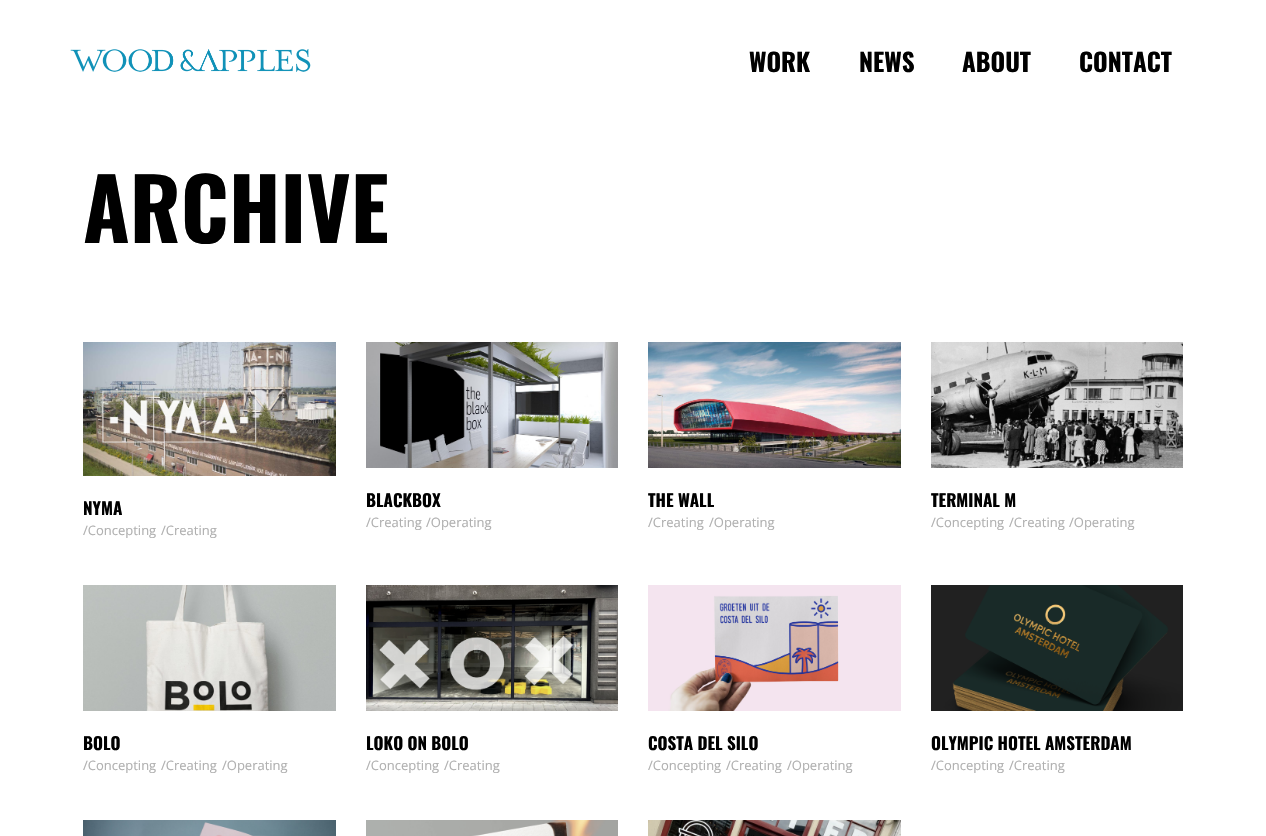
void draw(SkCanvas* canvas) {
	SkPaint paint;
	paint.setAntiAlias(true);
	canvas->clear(0xffffffff);
	canvas->drawImageRect(SkImages::DeferredFromEncodedData(SkData::MakeFromFileName("img1.png")), SkRect::MakeXYWH(70, 49, 241, 23), SkSamplingOptions());
	SkFont f1(fontMgr->matchFamilyStyle("Oswald", SkFontStyle::Bold()), 25);
	f1.setSubpixel(true);
	paint.setColor(0xff000000);
	canvas->drawString("WORK", 749, 72, f1, paint);
	canvas->drawString("NEWS", 859, 72, f1, paint);
	canvas->drawString("ABOUT", 962, 72, f1, paint);
	canvas->drawString("CONTACT", 1079, 72, f1, paint);
	SkFont f2(fontMgr->matchFamilyStyle("Oswald", SkFontStyle::Bold()), 85);
	f2.setSubpixel(true);
	canvas->drawString("ARCHIVE", 83, 243, f2, paint);
	canvas->drawImageRect(SkImages::DeferredFromEncodedData(SkData::MakeFromFileName("img2.png")), SkRect::MakeXYWH(83, 342, 253, 134), SkSamplingOptions());
	SkFont f3(fontMgr->matchFamilyStyle("Oswald", SkFontStyle::Bold()), 17);
	f3.setSubpixel(true);
	canvas->drawString("NYMA", 83, 515, f3, paint);
	SkFont f4(fontMgr->matchFamilyStyle("Open Sans", SkFontStyle::Normal()), 13);
	f4.setSubpixel(true);
	paint.setColor(0xffb0b0b0);
	canvas->drawString("/Concepting", 83, 535, f4, paint);
	canvas->drawString("/Creating", 161, 535, f4, paint);
	canvas->drawImageRect(SkImages::DeferredFromEncodedData(SkData::MakeFromFileName("img3.png")), SkRect::MakeXYWH(366, 342, 252, 126), SkSamplingOptions());
	paint.setColor(0xff000000);
	canvas->drawString("BLACKBOX", 366, 507, f3, paint);
	paint.setColor(0xffb0b0b0);
	canvas->drawString("/Creating", 366, 527, f4, paint);
	canvas->drawString("/Operating", 426, 527, f4, paint);
	canvas->drawImageRect(SkImages::DeferredFromEncodedData(SkData::MakeFromFileName("img4.png")), SkRect::MakeXYWH(648, 342, 253, 126), SkSamplingOptions());
	paint.setColor(0xff000000);
	canvas->drawString("THE WALL", 648, 507, f3, paint);
	paint.setColor(0xffb0b0b0);
	canvas->drawString("/Creating", 648, 527, f4, paint);
	canvas->drawString("/Operating", 709, 527, f4, paint);
	canvas->drawImageRect(SkImages::DeferredFromEncodedData(SkData::MakeFromFileName("img5.png")), SkRect::MakeXYWH(931, 342, 252, 126), SkSamplingOptions());
	paint.setColor(0xff000000);
	canvas->drawString("TERMINAL M", 931, 507, f3, paint);
	paint.setColor(0xffb0b0b0);
	canvas->drawString("/Concepting", 931, 527, f4, paint);
	canvas->drawString("/Creating", 1009, 527, f4, paint);
	canvas->drawString("/Operating", 1069, 527, f4, paint);
	canvas->drawImageRect(SkImages::DeferredFromEncodedData(SkData::MakeFromFileName("img6.png")), SkRect::MakeXYWH(83, 585, 253, 126), SkSamplingOptions());
	paint.setColor(0xff000000);
	canvas->drawString("BOLO", 83, 750, f3, paint);
	paint.setColor(0xffb0b0b0);
	canvas->drawString("/Concepting", 83, 770, f4, paint);
	canvas->drawString("/Creating", 161, 770, f4, paint);
	canvas->drawString("/Operating", 222, 770, f4, paint);
	canvas->drawImageRect(SkImages::DeferredFromEncodedData(SkData::MakeFromFileName("img7.png")), SkRect::MakeXYWH(366, 585, 252, 126), SkSamplingOptions());
	paint.setColor(0xff000000);
	canvas->drawString("LOKO ON BOLO", 366, 750, f3, paint);
	paint.setColor(0xffb0b0b0);
	canvas->drawString("/Concepting", 366, 770, f4, paint);
	canvas->drawString("/Creating", 444, 770, f4, paint);
	canvas->drawImageRect(SkImages::DeferredFromEncodedData(SkData::MakeFromFileName("img8.png")), SkRect::MakeXYWH(648, 585, 253, 126), SkSamplingOptions());
	paint.setColor(0xff000000);
	canvas->drawString("COSTA DEL SILO", 648, 750, f3, paint);
	paint.setColor(0xffb0b0b0);
	canvas->drawString("/Concepting", 648, 770, f4, paint);
	canvas->drawString("/Creating", 726, 770, f4, paint);
	canvas->drawString("/Operating", 787, 770, f4, paint);
	canvas->drawImageRect(SkImages::DeferredFromEncodedData(SkData::MakeFromFileName("img9.png")), SkRect::MakeXYWH(931, 585, 252, 126), SkSamplingOptions());
	paint.setColor(0xff000000);
	canvas->drawString("OLYMPIC HOTEL AMSTERDAM", 931, 750, f3, paint);
	paint.setColor(0xffb0b0b0);
	canvas->drawString("/Concepting", 931, 770, f4, paint);
	canvas->drawString("/Creating", 1009, 770, f4, paint);
	canvas->drawImageRect(SkImages::DeferredFromEncodedData(SkData::MakeFromFileName("img10.png")), SkRect::MakeXYWH(83, 820, 253, 16), SkSamplingOptions());
	canvas->drawImageRect(SkImages::DeferredFromEncodedData(SkData::MakeFromFileName("img11.png")), SkRect::MakeXYWH(366, 820, 252, 16), SkSamplingOptions());
	canvas->drawImageRect(SkImages::DeferredFromEncodedData(SkData::MakeFromFileName("img12.png")), SkRect::MakeXYWH(648, 820, 253, 16), SkSamplingOptions());
}
